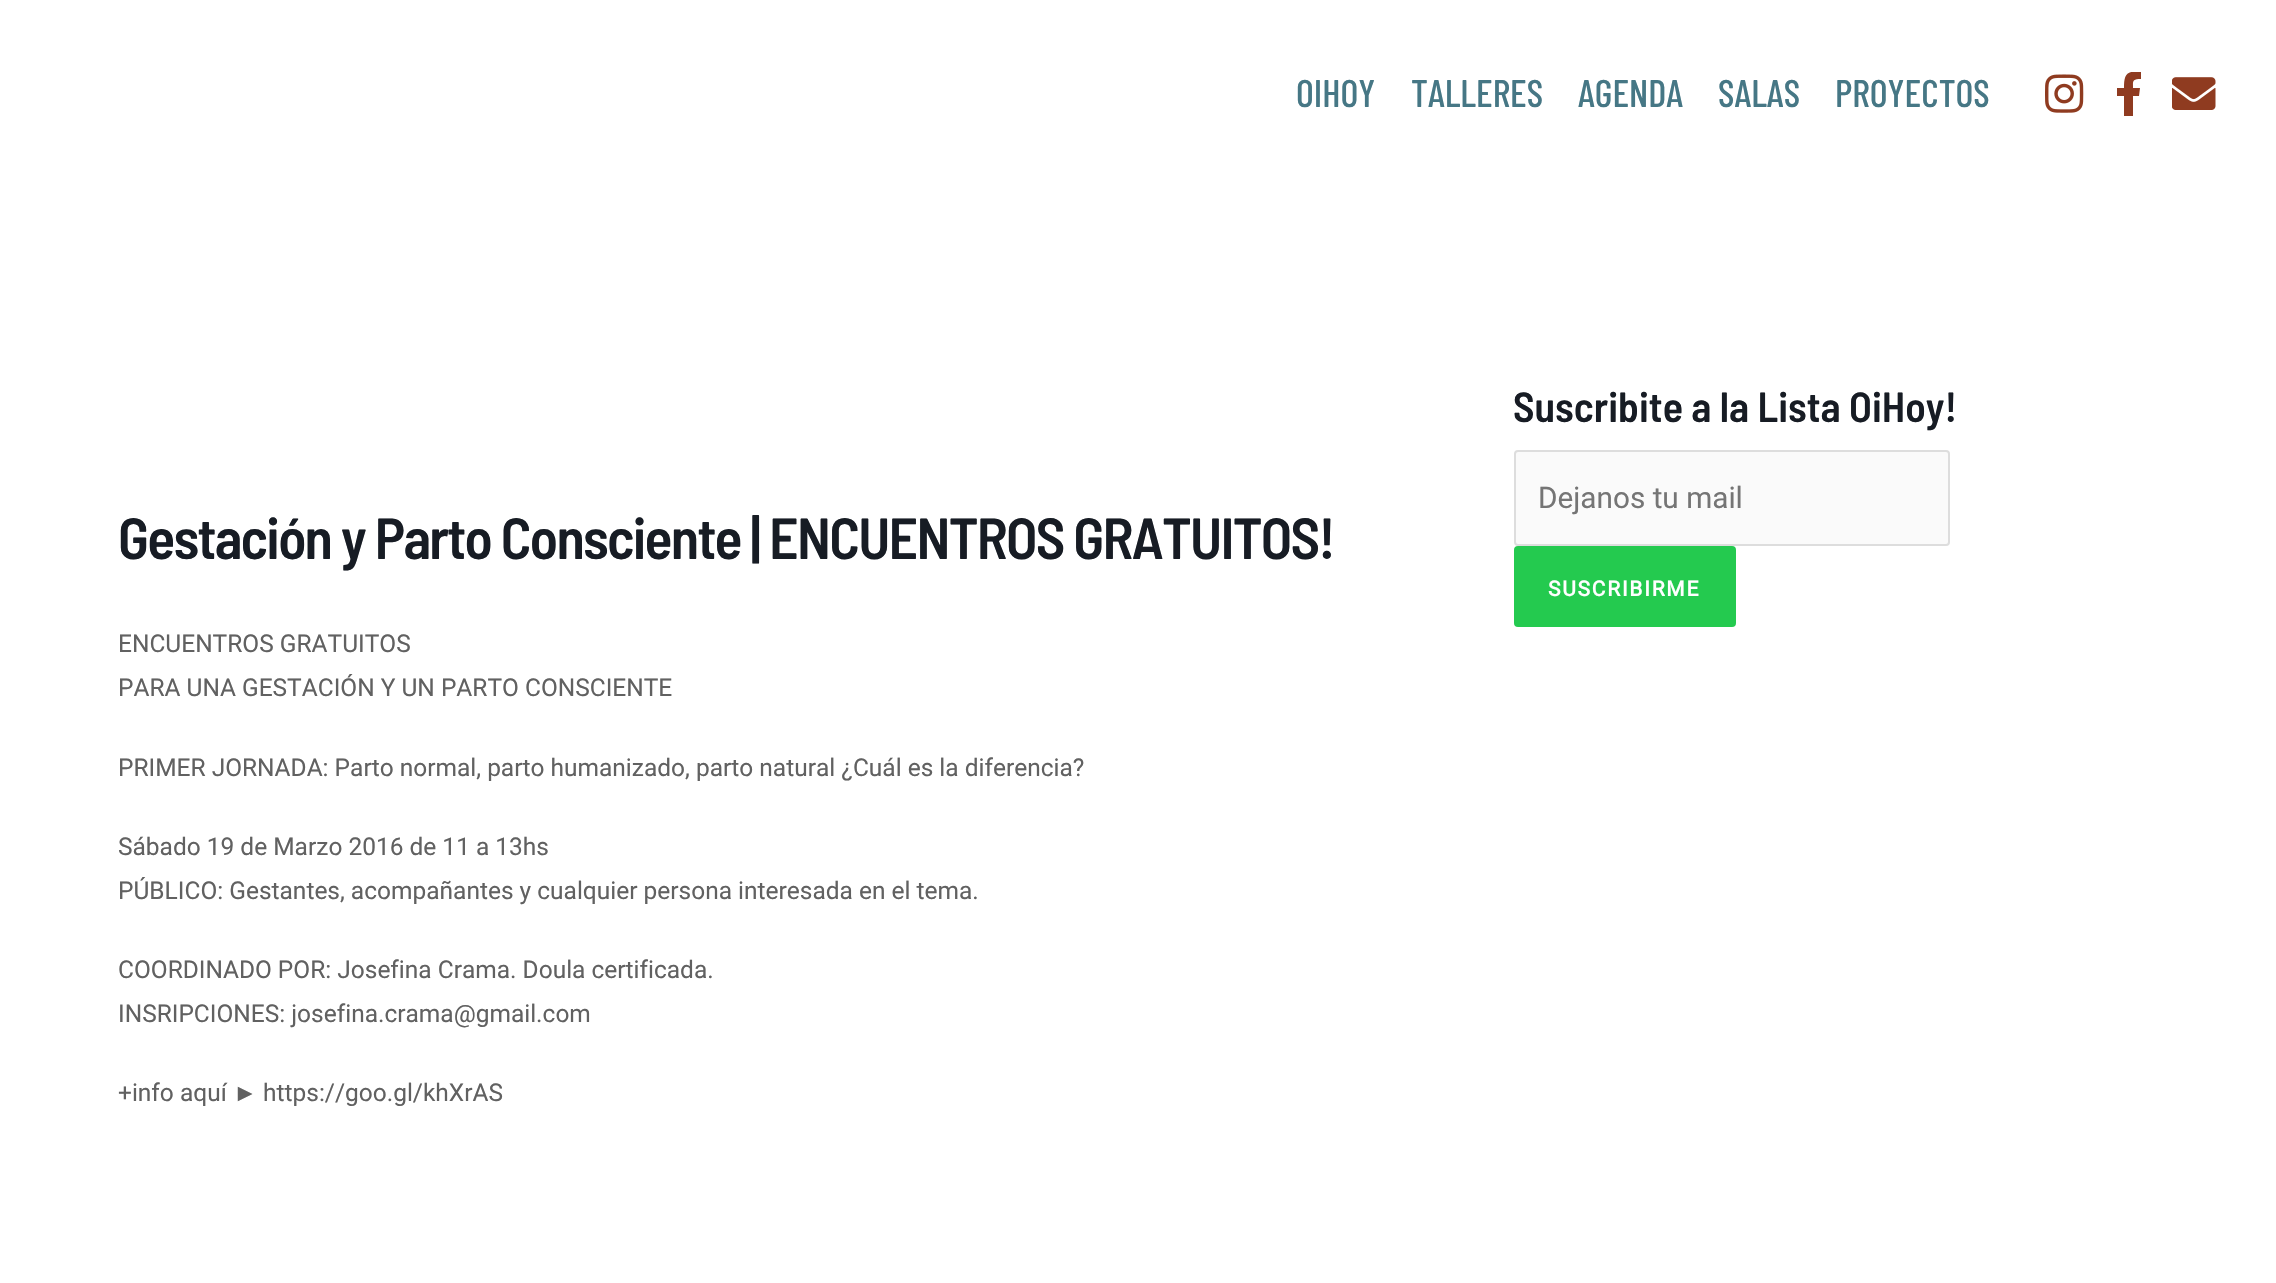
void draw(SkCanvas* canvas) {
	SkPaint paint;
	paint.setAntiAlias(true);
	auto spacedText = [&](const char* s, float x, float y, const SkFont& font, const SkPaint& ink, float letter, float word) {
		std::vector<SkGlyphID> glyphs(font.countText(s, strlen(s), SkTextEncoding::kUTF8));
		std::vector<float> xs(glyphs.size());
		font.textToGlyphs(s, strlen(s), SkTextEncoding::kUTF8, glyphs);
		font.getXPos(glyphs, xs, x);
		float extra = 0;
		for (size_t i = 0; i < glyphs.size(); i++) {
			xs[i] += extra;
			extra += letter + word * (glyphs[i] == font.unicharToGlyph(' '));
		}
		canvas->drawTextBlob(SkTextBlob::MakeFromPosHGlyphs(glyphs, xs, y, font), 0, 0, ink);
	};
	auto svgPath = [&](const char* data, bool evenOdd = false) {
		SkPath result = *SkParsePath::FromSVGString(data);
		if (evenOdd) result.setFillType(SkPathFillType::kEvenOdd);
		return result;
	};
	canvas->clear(0xffffffff);
	SkFont f1(fontMgr->matchFamilyStyle("Barlow Condensed", SkFontStyle(500, SkFontStyle::kNormal_Width, SkFontStyle::kUpright_Slant)), 38.5);
	f1.setSubpixel(true);
	paint.setColor(0xff467785);
	canvas->drawString("OIHOY", 1296, 107, f1, paint);
	canvas->drawString("TALLERES", 1411, 107, f1, paint);
	canvas->drawString("AGENDA", 1578, 107, f1, paint);
	canvas->drawString("SALAS", 1718, 107, f1, paint);
	canvas->drawString("PROYECTOS", 1835, 107, f1, paint);
	canvas->drawImageRect(SkImages::DeferredFromEncodedData(SkData::MakeFromFileName("img1.png")), SkRect::MakeXYWH(2045, 74, 39, 39), SkSamplingOptions());
	canvas->save();
	canvas->clipRect(SkRect::MakeXYWH(2107, 72, 44, 44));
	paint.setColor(0xff8f3b20);
	canvas->drawPath(svgPath("M2139 96L2140 88H2133C2133 81 2132 79 2141 79V72C2126 70 2124 75 2124 88H2117V96H2124V116H2133V96Z"), paint);
	canvas->restore();
	canvas->drawImageRect(SkImages::DeferredFromEncodedData(SkData::MakeFromFileName("img2.png")), SkRect::MakeXYWH(2172, 77, 44, 33), SkSamplingOptions());
	SkFont f2(fontMgr->matchFamilyStyle("Barlow Semi Condensed", SkFontStyle(600, SkFontStyle::kNormal_Width, SkFontStyle::kUpright_Slant)), 42);
	f2.setSubpixel(true);
	paint.setColor(0xff171c24);
	canvas->drawString("Suscribite a la Lista OiHoy!", 1513, 422, f2, paint);
	paint.setColor(0xfffafafa);
	canvas->drawRoundRect(SkRect::MakeXYWH(1515, 451, 434, 94), 3, 3, paint);
	paint.setStroke(true);
	paint.setStrokeWidth(2);
	paint.setColor(0xffdddddd);
	canvas->drawRoundRect(SkRect::MakeXYWH(1515, 451, 434, 94), 3, 3, paint);
	SkFont f3(fontMgr->matchFamilyStyle("Roboto", SkFontStyle::Normal()), 29.75);
	f3.setSubpixel(true);
	paint.setStroke(false);
	paint.setColor(0xff757575);
	canvas->drawString("Dejanos tu mail", 1538, 508, f3, paint);
	paint.setColor(0xff24ca4f);
	canvas->drawRoundRect(SkRect::MakeXYWH(1514, 546, 222, 81), 4, 4, paint);
	SkFont f4(fontMgr->matchFamilyStyle("Roboto", SkFontStyle::Bold()), 21);
	f4.setSubpixel(true);
	paint.setColor(0xffffffff);
	spacedText("SUSCRIBIRME", 1548, 596, f4, paint, 1.75, 0);
	SkFont f5(fontMgr->matchFamilyStyle("Barlow Semi Condensed", SkFontStyle(600, SkFontStyle::kNormal_Width, SkFontStyle::kUpright_Slant)), 57.75);
	f5.setSubpixel(true);
	paint.setColor(0xff171c24);
	spacedText("Gestación y Parto Consciente | ENCUENTROS GRATUITOS!", 118, 559, f5, paint, -1.75, 0);
	SkFont f6(fontMgr->matchFamilyStyle("Roboto", SkFontStyle::Normal()), 24.5);
	f6.setSubpixel(true);
	paint.setColor(0xff616161);
	canvas->drawString("ENCUENTROS GRATUITOS", 118, 652, f6, paint);
	canvas->drawString("PARA UNA GESTACIÓN Y UN PARTO CONSCIENTE", 118, 696, f6, paint);
	canvas->drawString("PRIMER JORNADA: Parto normal, parto humanizado, parto natural ¿Cuál es la diferencia?", 118, 776, f6, paint);
	canvas->drawString("Sábado 19 de Marzo 2016 de 11 a 13hs", 118, 855, f6, paint);
	canvas->drawString("PÚBLICO: Gestantes, acompañantes y cualquier persona interesada en el tema.", 118, 899, f6, paint);
	canvas->drawString("COORDINADO POR: Josefina Crama. Doula certificada.", 118, 978, f6, paint);
	canvas->drawString("INSRIPCIONES: josefina.crama@gmail.com", 118, 1022, f6, paint);
	canvas->drawString("+info aquí", 118, 1101, f6, paint);
	SkFont f7(fontMgr->matchFamilyStyle("Liberation Sans", SkFontStyle::Normal()), 24.5);
	f7.setSubpixel(true);
	canvas->drawString("►", 233, 1101, f7, paint);
	canvas->drawString("https://goo.gl/khXrAS", 263, 1101, f6, paint);
}
